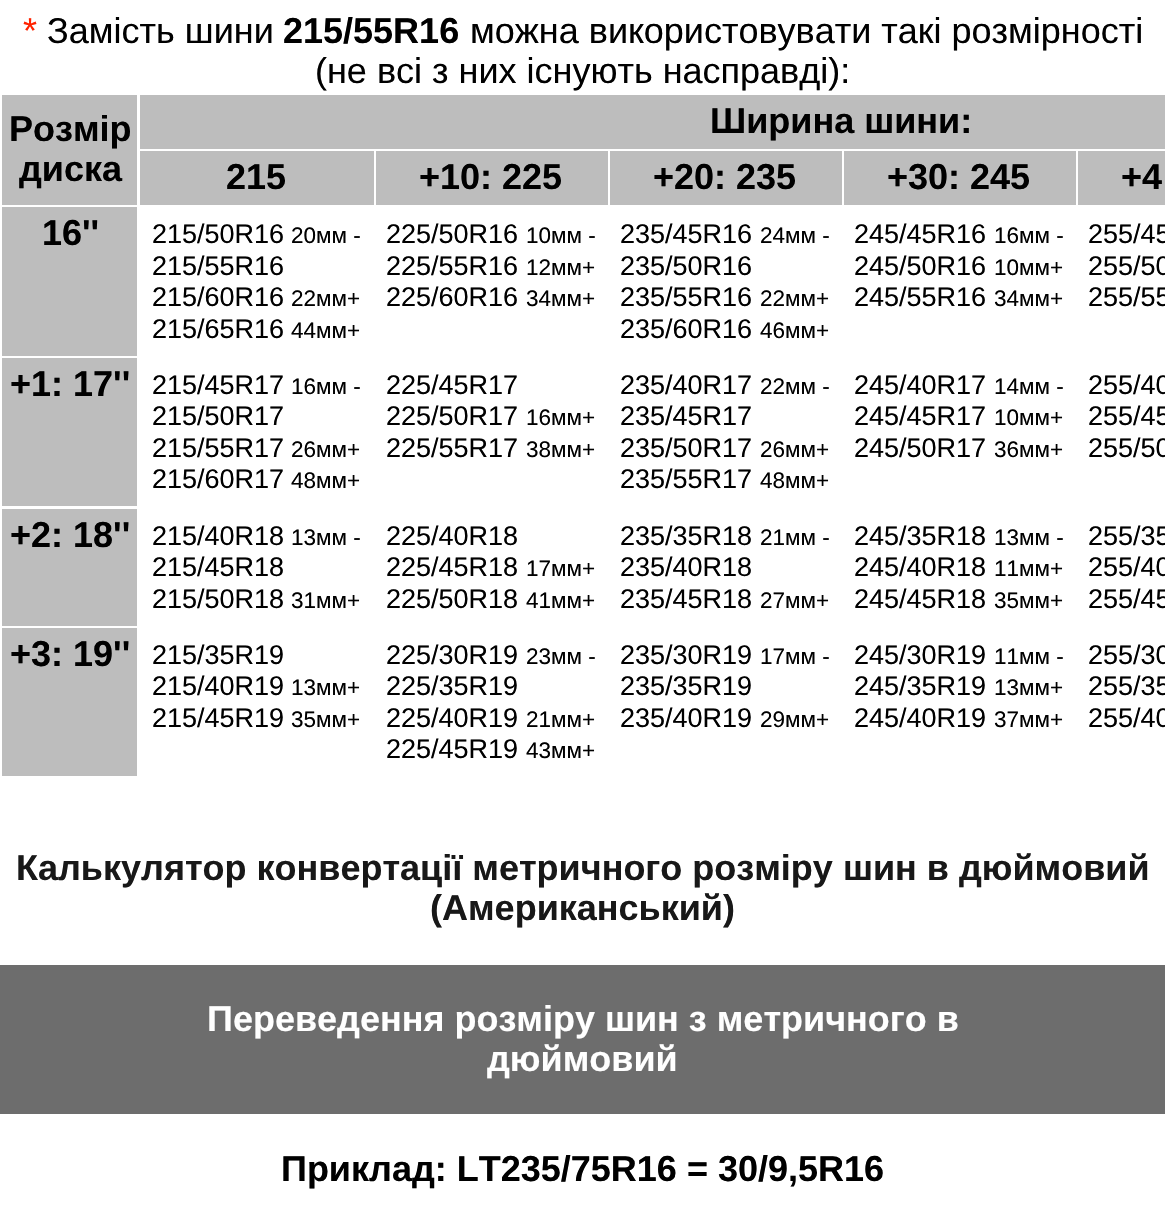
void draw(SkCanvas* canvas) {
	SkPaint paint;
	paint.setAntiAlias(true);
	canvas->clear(0xffffffff);
	SkFont f1(fontMgr->matchFamilyStyle("Liberation Sans", SkFontStyle::Normal()), 36);
	f1.setSubpixel(true);
	paint.setColor(0xffff2200);
	canvas->drawString("*", 23, 43, f1, paint);
	paint.setColor(0xff000000);
	canvas->drawString("Замість шини", 47, 43, f1, paint);
	SkFont f2(fontMgr->matchFamilyStyle("Liberation Sans", SkFontStyle::Bold()), 36);
	f2.setSubpixel(true);
	canvas->drawString("215/55R16", 283, 43, f2, paint);
	canvas->drawString("можна використовувати такі розмірності", 470, 43, f1, paint);
	canvas->drawString("(не всі з них існують насправді):", 315, 83, f1, paint);
	paint.setColor(0xffbdbdbd);
	canvas->drawRect(SkRect::MakeXYWH(2, 95, 135, 110), paint);
	paint.setColor(0xff000000);
	canvas->drawString("Розмір", 9, 141, f2, paint);
	canvas->drawString("диска", 19, 181, f2, paint);
	paint.setColor(0xffbdbdbd);
	canvas->drawRect(SkRect::MakeXYWH(140, 95, 1025, 54), paint);
	paint.setColor(0xff000000);
	canvas->drawString("Ширина шини:", 710, 133, f2, paint);
	paint.setColor(0xffbdbdbd);
	canvas->drawRect(SkRect::MakeXYWH(140, 151, 234, 54), paint);
	paint.setColor(0xff000000);
	canvas->drawString("215", 226, 189, f2, paint);
	paint.setColor(0xffbdbdbd);
	canvas->drawRect(SkRect::MakeXYWH(376, 151, 232, 54), paint);
	paint.setColor(0xff000000);
	canvas->drawString("+10: 225", 419, 189, f2, paint);
	paint.setColor(0xffbdbdbd);
	canvas->drawRect(SkRect::MakeXYWH(610, 151, 232, 54), paint);
	paint.setColor(0xff000000);
	canvas->drawString("+20: 235", 653, 189, f2, paint);
	paint.setColor(0xffbdbdbd);
	canvas->drawRect(SkRect::MakeXYWH(844, 151, 232, 54), paint);
	paint.setColor(0xff000000);
	canvas->drawString("+30: 245", 887, 189, f2, paint);
	paint.setColor(0xffbdbdbd);
	canvas->drawRect(SkRect::MakeXYWH(1078, 151, 87, 54), paint);
	paint.setColor(0xff000000);
	canvas->drawString("+4", 1121, 189, f2, paint);
	paint.setColor(0xffbdbdbd);
	canvas->drawRect(SkRect::MakeXYWH(2, 207, 135, 149), paint);
	paint.setColor(0xff000000);
	canvas->drawString("16''", 42, 245, f2, paint);
	SkFont f3(fontMgr->matchFamilyStyle("Liberation Sans", SkFontStyle::Normal()), 27);
	f3.setSubpixel(true);
	canvas->drawString("215/50R16", 152, 243, f3, paint);
	SkFont f4(fontMgr->matchFamilyStyle("Liberation Sans", SkFontStyle::Normal()), 22.5);
	f4.setSubpixel(true);
	canvas->drawString("20мм -", 291, 243, f4, paint);
	canvas->drawString("215/55R16", 152, 275, f3, paint);
	canvas->drawString("215/60R16", 152, 306, f3, paint);
	canvas->drawString("22мм+", 291, 306, f4, paint);
	canvas->drawString("215/65R16", 152, 338, f3, paint);
	canvas->drawString("44мм+", 291, 338, f4, paint);
	canvas->drawString("225/50R16", 386, 243, f3, paint);
	canvas->drawString("10мм -", 526, 243, f4, paint);
	canvas->drawString("225/55R16", 386, 275, f3, paint);
	canvas->drawString("12мм+", 526, 275, f4, paint);
	canvas->drawString("225/60R16", 386, 306, f3, paint);
	canvas->drawString("34мм+", 526, 306, f4, paint);
	canvas->drawString("235/45R16", 620, 243, f3, paint);
	canvas->drawString("24мм -", 760, 243, f4, paint);
	canvas->drawString("235/50R16", 620, 275, f3, paint);
	canvas->drawString("235/55R16", 620, 306, f3, paint);
	canvas->drawString("22мм+", 760, 306, f4, paint);
	canvas->drawString("235/60R16", 620, 338, f3, paint);
	canvas->drawString("46мм+", 760, 338, f4, paint);
	canvas->drawString("245/45R16", 854, 243, f3, paint);
	canvas->drawString("16мм -", 994, 243, f4, paint);
	canvas->drawString("245/50R16", 854, 275, f3, paint);
	canvas->drawString("10мм+", 994, 275, f4, paint);
	canvas->drawString("245/55R16", 854, 306, f3, paint);
	canvas->drawString("34мм+", 994, 306, f4, paint);
	canvas->drawString("255/45", 1088, 243, f3, paint);
	canvas->drawString("255/50", 1088, 275, f3, paint);
	canvas->drawString("255/55", 1088, 306, f3, paint);
	paint.setColor(0xffbdbdbd);
	canvas->drawRect(SkRect::MakeXYWH(2, 358, 135, 148), paint);
	paint.setColor(0xff000000);
	canvas->drawString("+1: 17''", 10, 396, f2, paint);
	canvas->drawString("215/45R17", 152, 394, f3, paint);
	canvas->drawString("16мм -", 291, 394, f4, paint);
	canvas->drawString("215/50R17", 152, 425, f3, paint);
	canvas->drawString("215/55R17", 152, 457, f3, paint);
	canvas->drawString("26мм+", 291, 457, f4, paint);
	canvas->drawString("215/60R17", 152, 488, f3, paint);
	canvas->drawString("48мм+", 291, 488, f4, paint);
	canvas->drawString("225/45R17", 386, 394, f3, paint);
	canvas->drawString("225/50R17", 386, 425, f3, paint);
	canvas->drawString("16мм+", 526, 425, f4, paint);
	canvas->drawString("225/55R17", 386, 457, f3, paint);
	canvas->drawString("38мм+", 526, 457, f4, paint);
	canvas->drawString("235/40R17", 620, 394, f3, paint);
	canvas->drawString("22мм -", 760, 394, f4, paint);
	canvas->drawString("235/45R17", 620, 425, f3, paint);
	canvas->drawString("235/50R17", 620, 457, f3, paint);
	canvas->drawString("26мм+", 760, 457, f4, paint);
	canvas->drawString("235/55R17", 620, 488, f3, paint);
	canvas->drawString("48мм+", 760, 488, f4, paint);
	canvas->drawString("245/40R17", 854, 394, f3, paint);
	canvas->drawString("14мм -", 994, 394, f4, paint);
	canvas->drawString("245/45R17", 854, 425, f3, paint);
	canvas->drawString("10мм+", 994, 425, f4, paint);
	canvas->drawString("245/50R17", 854, 457, f3, paint);
	canvas->drawString("36мм+", 994, 457, f4, paint);
	canvas->drawString("255/40", 1088, 394, f3, paint);
	canvas->drawString("255/45", 1088, 425, f3, paint);
	canvas->drawString("255/50", 1088, 457, f3, paint);
	paint.setColor(0xffbdbdbd);
	canvas->drawRect(SkRect::MakeXYWH(2, 509, 135, 117), paint);
	paint.setColor(0xff000000);
	canvas->drawString("+2: 18''", 10, 547, f2, paint);
	canvas->drawString("215/40R18", 152, 545, f3, paint);
	canvas->drawString("13мм -", 291, 545, f4, paint);
	canvas->drawString("215/45R18", 152, 576, f3, paint);
	canvas->drawString("215/50R18", 152, 608, f3, paint);
	canvas->drawString("31мм+", 291, 608, f4, paint);
	canvas->drawString("225/40R18", 386, 545, f3, paint);
	canvas->drawString("225/45R18", 386, 576, f3, paint);
	canvas->drawString("17мм+", 526, 576, f4, paint);
	canvas->drawString("225/50R18", 386, 608, f3, paint);
	canvas->drawString("41мм+", 526, 608, f4, paint);
	canvas->drawString("235/35R18", 620, 545, f3, paint);
	canvas->drawString("21мм -", 760, 545, f4, paint);
	canvas->drawString("235/40R18", 620, 576, f3, paint);
	canvas->drawString("235/45R18", 620, 608, f3, paint);
	canvas->drawString("27мм+", 760, 608, f4, paint);
	canvas->drawString("245/35R18", 854, 545, f3, paint);
	canvas->drawString("13мм -", 994, 545, f4, paint);
	canvas->drawString("245/40R18", 854, 576, f3, paint);
	canvas->drawString("11мм+", 994, 576, f4, paint);
	canvas->drawString("245/45R18", 854, 608, f3, paint);
	canvas->drawString("35мм+", 994, 608, f4, paint);
	canvas->drawString("255/35", 1088, 545, f3, paint);
	canvas->drawString("255/40", 1088, 576, f3, paint);
	canvas->drawString("255/45", 1088, 608, f3, paint);
	paint.setColor(0xffbdbdbd);
	canvas->drawRect(SkRect::MakeXYWH(2, 628, 135, 148), paint);
	paint.setColor(0xff000000);
	canvas->drawString("+3: 19''", 10, 666, f2, paint);
	canvas->drawString("215/35R19", 152, 664, f3, paint);
	canvas->drawString("215/40R19", 152, 695, f3, paint);
	canvas->drawString("13мм+", 291, 695, f4, paint);
	canvas->drawString("215/45R19", 152, 727, f3, paint);
	canvas->drawString("35мм+", 291, 727, f4, paint);
	canvas->drawString("225/30R19", 386, 664, f3, paint);
	canvas->drawString("23мм -", 526, 664, f4, paint);
	canvas->drawString("225/35R19", 386, 695, f3, paint);
	canvas->drawString("225/40R19", 386, 727, f3, paint);
	canvas->drawString("21мм+", 526, 727, f4, paint);
	canvas->drawString("225/45R19", 386, 758, f3, paint);
	canvas->drawString("43мм+", 526, 758, f4, paint);
	canvas->drawString("235/30R19", 620, 664, f3, paint);
	canvas->drawString("17мм -", 760, 664, f4, paint);
	canvas->drawString("235/35R19", 620, 695, f3, paint);
	canvas->drawString("235/40R19", 620, 727, f3, paint);
	canvas->drawString("29мм+", 760, 727, f4, paint);
	canvas->drawString("245/30R19", 854, 664, f3, paint);
	canvas->drawString("11мм -", 994, 664, f4, paint);
	canvas->drawString("245/35R19", 854, 695, f3, paint);
	canvas->drawString("13мм+", 994, 695, f4, paint);
	canvas->drawString("245/40R19", 854, 727, f3, paint);
	canvas->drawString("37мм+", 994, 727, f4, paint);
	canvas->drawString("255/30", 1088, 664, f3, paint);
	canvas->drawString("255/35", 1088, 695, f3, paint);
	canvas->drawString("255/40", 1088, 727, f3, paint);
	paint.setColor(0xff181818);
	canvas->drawString("Калькулятор конвертації метричного розміру шин в дюймовий", 16, 880, f2, paint);
	canvas->drawString("(Американський)", 430, 920, f2, paint);
	paint.setColor(0xff6d6d6d);
	canvas->drawRect(SkRect::MakeXYWH(0, 965, 1165, 149), paint);
	paint.setColor(0xffffffff);
	canvas->drawString("Переведення розміру шин з метричного в", 207, 1031, f2, paint);
	canvas->drawString("дюймовий", 487, 1071, f2, paint);
	paint.setColor(0xff000000);
	canvas->drawString("Приклад: LT235/75R16 = 30/9,5R16", 281, 1181, f2, paint);
}
